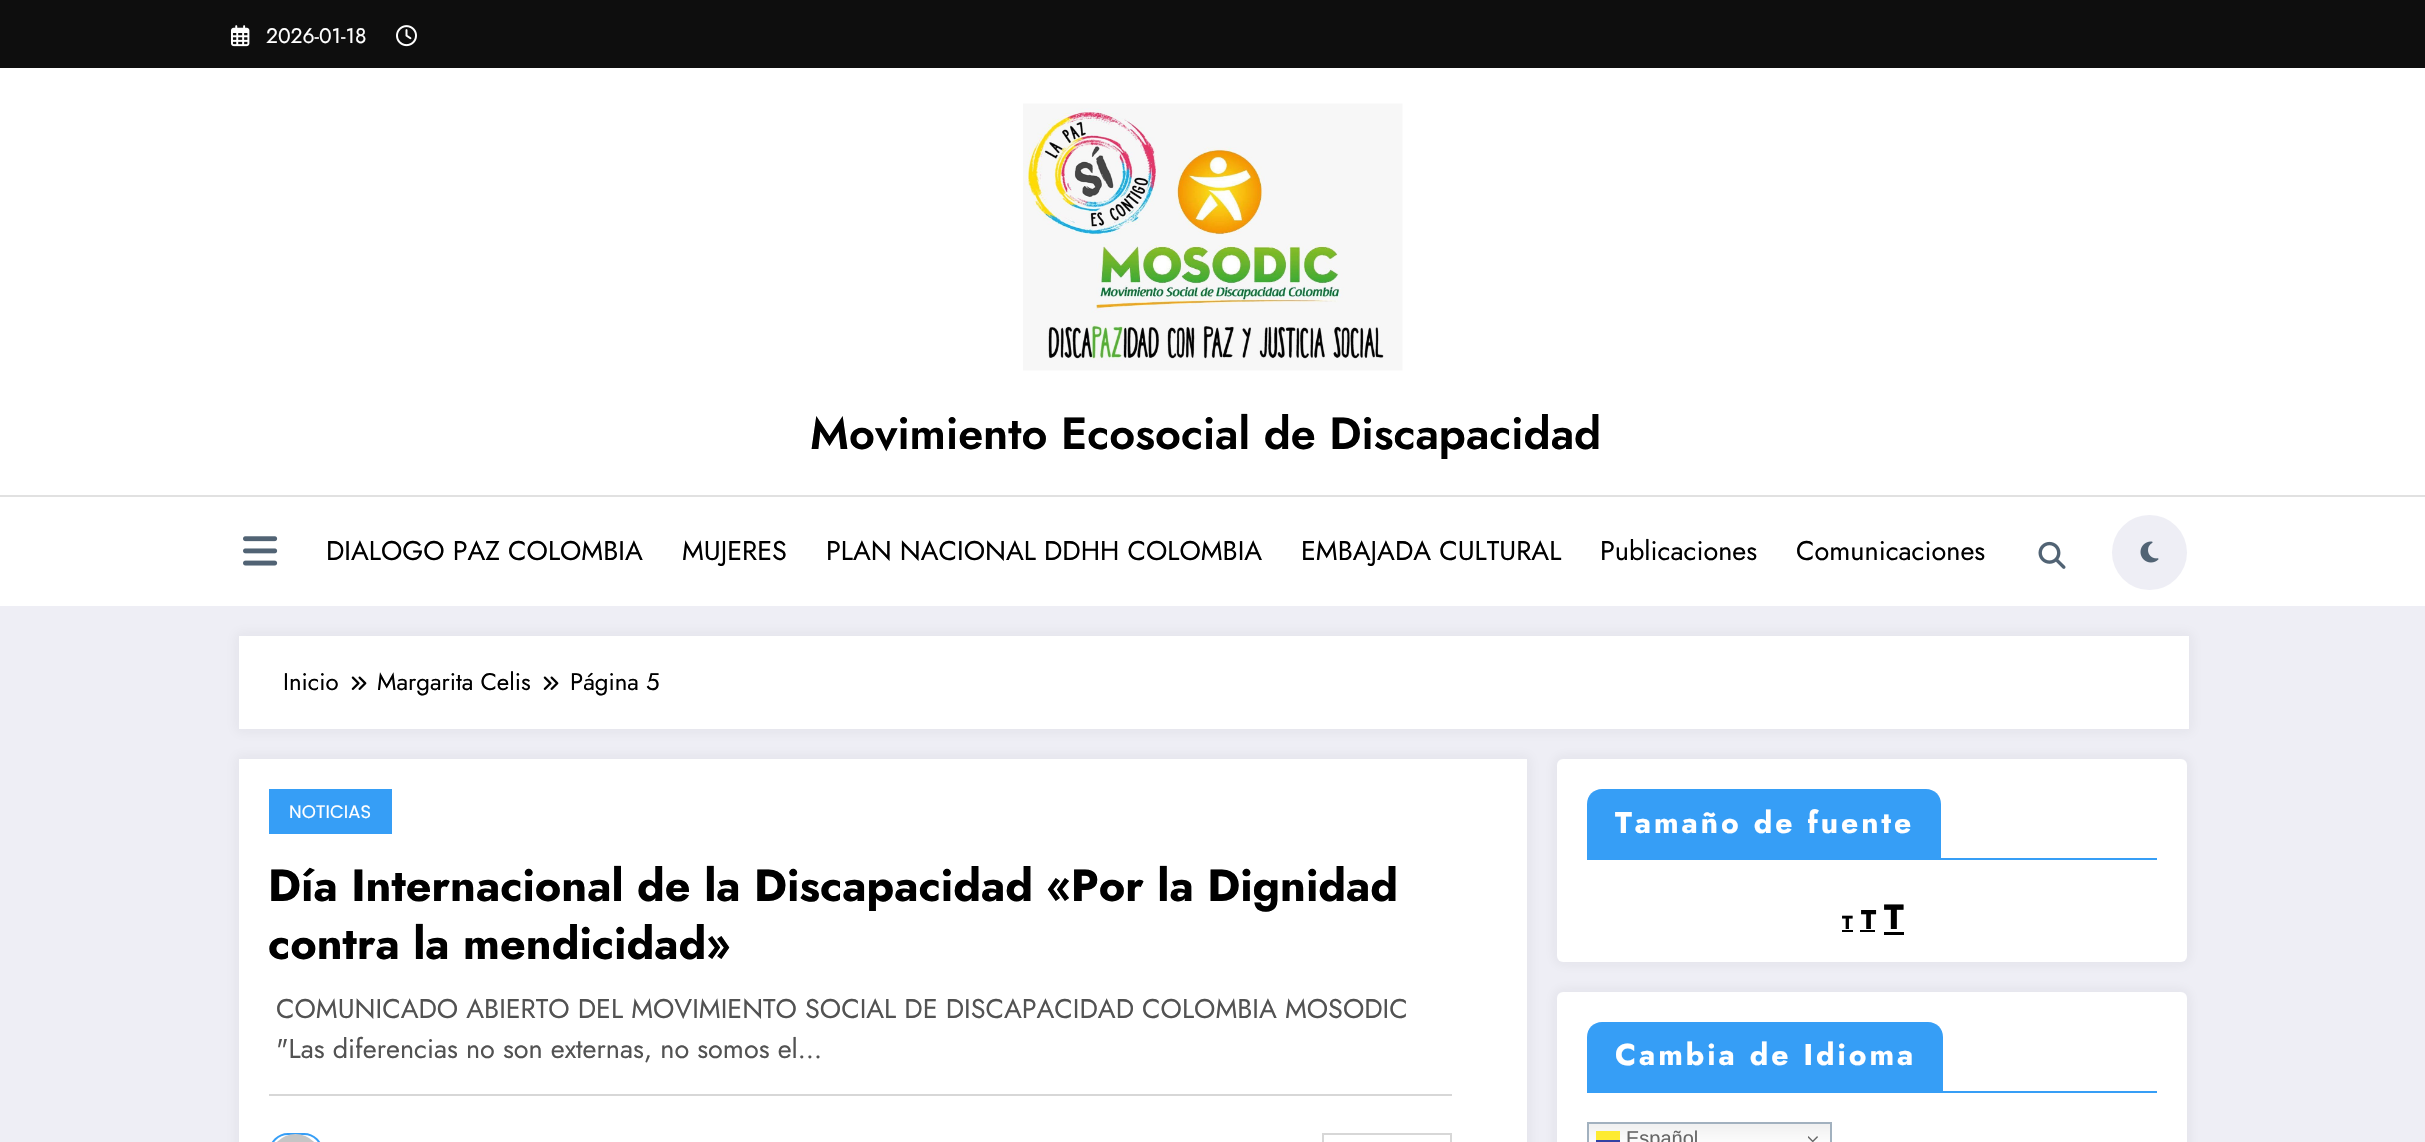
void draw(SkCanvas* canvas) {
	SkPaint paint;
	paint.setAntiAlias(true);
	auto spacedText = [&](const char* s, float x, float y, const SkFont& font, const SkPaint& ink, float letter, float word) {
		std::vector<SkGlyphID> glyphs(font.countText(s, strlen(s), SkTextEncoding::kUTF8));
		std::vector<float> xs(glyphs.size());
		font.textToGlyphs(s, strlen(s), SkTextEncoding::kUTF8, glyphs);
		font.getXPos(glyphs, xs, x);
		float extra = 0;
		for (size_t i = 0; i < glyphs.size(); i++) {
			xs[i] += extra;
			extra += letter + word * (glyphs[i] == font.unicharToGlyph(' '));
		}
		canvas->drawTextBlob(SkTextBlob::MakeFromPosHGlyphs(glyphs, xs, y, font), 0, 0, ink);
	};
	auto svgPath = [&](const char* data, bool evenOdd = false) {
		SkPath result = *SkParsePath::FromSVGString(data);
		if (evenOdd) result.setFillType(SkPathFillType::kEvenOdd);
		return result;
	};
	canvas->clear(0xffeeeef5);
	paint.setColor(0xff0e0e0e);
	canvas->drawRect(SkRect::MakeXYWH(0, 0, 2425, 68), paint);
	canvas->drawImageRect(SkImages::DeferredFromEncodedData(SkData::MakeFromFileName("img1.png")), SkRect::MakeXYWH(231, 25, 19, 22), SkSamplingOptions());
	SkFont f1(fontMgr->matchFamilyStyle("Jost", SkFontStyle::Normal()), 21);
	f1.setSubpixel(true);
	paint.setColor(0xffffffff);
	canvas->drawString("2026-01-18", 266, 43, f1, paint);
	canvas->drawImageRect(SkImages::DeferredFromEncodedData(SkData::MakeFromFileName("img2.png")), SkRect::MakeXYWH(396, 25, 21, 22), SkSamplingOptions());
	canvas->drawRect(SkRect::MakeXYWH(0, 68, 2425, 538), paint);
	canvas->drawImageRect(SkImages::DeferredFromEncodedData(SkData::MakeFromFileName("img3.png")), SkRect::MakeXYWH(1023, 103, 380, 268), SkSamplingOptions());
	SkFont f2(fontMgr->matchFamilyStyle("Jost", SkFontStyle(600, SkFontStyle::kNormal_Width, SkFontStyle::kUpright_Slant)), 45);
	f2.setSubpixel(true);
	paint.setColor(0xff000000);
	canvas->drawString("Movimiento Ecosocial de Discapacidad", 810, 449, f2, paint);
	paint.setColor(0xffe1e1e1);
	canvas->drawRect(SkRect::MakeXYWH(0, 495, 2425, 2), paint);
	canvas->drawImageRect(SkImages::DeferredFromEncodedData(SkData::MakeFromFileName("img4.png")), SkRect::MakeXYWH(243, 536, 35, 30), SkSamplingOptions());
	SkFont f3(fontMgr->matchFamilyStyle("Jost", SkFontStyle::Normal()), 27);
	f3.setSubpixel(true);
	paint.setColor(0xff000000);
	canvas->drawString("DIALOGO PAZ COLOMBIA", 326, 560, f3, paint);
	canvas->drawString("MUJERES", 682, 560, f3, paint);
	canvas->drawString("PLAN NACIONAL DDHH COLOMBIA", 826, 560, f3, paint);
	canvas->drawString("EMBAJADA CULTURAL", 1301, 560, f3, paint);
	canvas->drawString("Publicaciones", 1600, 560, f3, paint);
	canvas->drawString("Comunicaciones", 1796, 560, f3, paint);
	canvas->drawImageRect(SkImages::DeferredFromEncodedData(SkData::MakeFromFileName("img5.png")), SkRect::MakeXYWH(2038, 541, 28, 28), SkSamplingOptions());
	paint.setColor(0xffeeeef5);
	canvas->drawCircle(2149.5, 552.5, 37.5, paint);
	canvas->drawImageRect(SkImages::DeferredFromEncodedData(SkData::MakeFromFileName("img6.png")), SkRect::MakeXYWH(2140, 541, 19, 22), SkSamplingOptions());
	paint.setColor(0x0d171723);
	paint.setMaskFilter(SkMaskFilter::MakeBlur(kNormal_SkBlurStyle, 6));
	canvas->drawRect(SkRect::MakeXYWH(236, 633, 1956, 99), paint);
	paint.setMaskFilter(nullptr);
	paint.setColor(0xffffffff);
	canvas->drawRect(SkRect::MakeXYWH(239, 636, 1950, 93), paint);
	SkFont f4(fontMgr->matchFamilyStyle("Jost", SkFontStyle::Normal()), 24);
	f4.setSubpixel(true);
	paint.setColor(0xff000000);
	canvas->drawString("Inicio", 283, 690, f4, paint);
	canvas->drawImageRect(SkImages::DeferredFromEncodedData(SkData::MakeFromFileName("img7.png")), SkRect::MakeXYWH(351, 676, 16, 14), SkSamplingOptions());
	canvas->drawString("Margarita Celis", 377, 690, f4, paint);
	canvas->drawImageRect(SkImages::DeferredFromEncodedData(SkData::MakeFromFileName("img7.png")), SkRect::MakeXYWH(543, 676, 16, 14), SkSamplingOptions());
	canvas->drawString("Página 5", 570, 690, f4, paint);
	paint.setColor(0x0d171723);
	paint.setMaskFilter(SkMaskFilter::MakeBlur(kNormal_SkBlurStyle, 6));
	canvas->drawRect(SkRect::MakeXYWH(236, 756, 1294, 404), paint);
	paint.setMaskFilter(nullptr);
	paint.setColor(0xffffffff);
	canvas->drawRect(SkRect::MakeXYWH(239, 759, 1288, 383), paint);
	paint.setColor(0xff369ef6);
	canvas->drawRect(SkRect::MakeXYWH(269, 789, 123, 45), paint);
	SkFont f5(fontMgr->matchFamilyStyle("Poppins", SkFontStyle::Normal()), 18);
	f5.setSubpixel(true);
	paint.setColor(0xffffffff);
	canvas->drawString("NOTICIAS", 289, 818, f5, paint);
	SkFont f6(fontMgr->matchFamilyStyle("Jost", SkFontStyle::Bold()), 45);
	f6.setSubpixel(true);
	paint.setColor(0xff000000);
	canvas->drawString("Día Internacional de la Discapacidad «Por la Dignidad", 268, 901, f6, paint);
	canvas->drawString("contra la mendicidad»", 268, 959, f6, paint);
	paint.setColor(0xffd7d7d7);
	canvas->drawRect(SkRect::MakeXYWH(269, 1094, 1183, 2), paint);
	paint.setColor(0xff525252);
	canvas->drawString("COMUNICADO ABIERTO DEL MOVIMIENTO SOCIAL DE DISCAPACIDAD COLOMBIA MOSODIC", 276, 1018, f3, paint);
	canvas->drawString("\"Las diferencias no son externas, no somos el…", 276, 1058, f3, paint);
	paint.setStroke(true);
	paint.setStrokeWidth(2);
	paint.setColor(0xff369ef6);
	canvas->drawRoundRect(SkRect::MakeXYWH(270, 1134, 52, 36), 26, 26, paint);
	canvas->drawImageRect(SkImages::DeferredFromEncodedData(SkData::MakeFromFileName("img8.png")), SkRect::MakeXYWH(277, 1134, 37, 8), SkSamplingOptions());
	paint.setColor(0xffd7d7d7);
	canvas->drawRect(SkRect::MakeXYWH(1323, 1134, 128, 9), paint);
	paint.setStroke(false);
	paint.setColor(0x0d171723);
	paint.setMaskFilter(SkMaskFilter::MakeBlur(kNormal_SkBlurStyle, 6));
	canvas->drawRoundRect(SkRect::MakeXYWH(1554, 756, 636, 209), 9, 9, paint);
	paint.setMaskFilter(nullptr);
	paint.setColor(0xffffffff);
	canvas->drawRoundRect(SkRect::MakeXYWH(1557, 759, 630, 203), 6, 6, paint);
	paint.setColor(0xff369ef6);
	canvas->drawRect(SkRect::MakeXYWH(1587, 858, 570, 2), paint);
	canvas->drawPath(svgPath("M1602 789H1926C1934.5 789 1941 795.5 1941 804V858H1587V804C1587 795.5 1593.5 789 1602 789Z"), paint);
	SkFont f7(fontMgr->matchFamilyStyle("Jost", SkFontStyle::Bold()), 30);
	f7.setSubpixel(true);
	paint.setColor(0xffffffff);
	spacedText("Tamaño de fuente", 1615, 833, f7, paint, 3, 0);
	SkFont f8(fontMgr->matchFamilyStyle("Jost", SkFontStyle::Bold()), 19);
	f8.setSubpixel(true);
	paint.setColor(0xff000000);
	canvas->drawString("T", 1842, 929, f8, paint);
	canvas->drawRect(SkRect::MakeXYWH(1842, 930, 11, 2), paint);
	SkFont f9(fontMgr->matchFamilyStyle("Jost", SkFontStyle::Bold()), 27);
	f9.setSubpixel(true);
	canvas->drawString("T", 1861, 929, f9, paint);
	canvas->drawRect(SkRect::MakeXYWH(1860, 930, 15, 2), paint);
	SkFont f10(fontMgr->matchFamilyStyle("Jost", SkFontStyle::Bold()), 35);
	f10.setSubpixel(true);
	canvas->drawString("T", 1884, 929, f10, paint);
	canvas->drawRect(SkRect::MakeXYWH(1884, 932, 20, 3), paint);
	paint.setColor(0x0d171723);
	paint.setMaskFilter(SkMaskFilter::MakeBlur(kNormal_SkBlurStyle, 6));
	canvas->drawRoundRect(SkRect::MakeXYWH(1554, 989, 636, 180), 9, 9, paint);
	paint.setMaskFilter(nullptr);
	paint.setColor(0xffffffff);
	canvas->drawRoundRect(SkRect::MakeXYWH(1557, 992, 630, 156), 6, 6, paint);
	paint.setColor(0xff369ef6);
	canvas->drawRect(SkRect::MakeXYWH(1587, 1091, 570, 2), paint);
	canvas->drawPath(svgPath("M1602 1022H1928C1936.5 1022 1943 1028.5 1943 1037V1091H1587V1037C1587 1028.5 1593.5 1022 1602 1022Z"), paint);
	paint.setColor(0xffffffff);
	spacedText("Cambia de Idioma", 1615, 1065, f7, paint, 3, 0);
	{
		const SkColor colors[] = {0xffefefef, 0xffffffff};
		const float stops[] = {0, 0.7};
		const SkPoint ends[] = {{1709, 1122}, {1709, 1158}};
		paint.setShader(SkGradientShader::MakeLinear(ends, colors, stops, 2, SkTileMode::kClamp));
		paint.setAlpha(255);
	}
	canvas->drawRect(SkRect::MakeXYWH(1589, 1124, 241, 18), paint);
	{
		const SkColor colors[] = {0xfffce930, 0xffffed33};
		const float stops[] = {0, 0.7};
		const SkPoint ends[] = {{1709, 1122}, {1709, 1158}};
		paint.setShader(SkGradientShader::MakeLinear(ends, colors, stops, 2, SkTileMode::kClamp));
		paint.setAlpha(255);
	}
	canvas->drawRect(SkRect::MakeXYWH(1596, 1131, 24, 9), paint);
	paint.setStroke(true);
	paint.setShader(nullptr);
	paint.setColor(0xffa2b1bf);
	canvas->drawRect(SkRect::MakeXYWH(1588, 1123, 243, 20), paint);
	paint.setStroke(false);
	paint.setColor(0xff3242a4);
	canvas->drawRect(SkRect::MakeXYWH(1596, 1140, 24, 2), paint);
	SkFont f11(fontMgr->matchFamilyStyle("Liberation Sans", SkFontStyle::Normal()), 20);
	f11.setSubpixel(true);
	paint.setColor(0xff666666);
	canvas->drawString("Español", 1626, 1145, f11, paint);
	canvas->drawImageRect(SkImages::DeferredFromEncodedData(SkData::MakeFromFileName("img9.png")), SkRect::MakeXYWH(1808, 1136, 10, 6), SkSamplingOptions());
}
